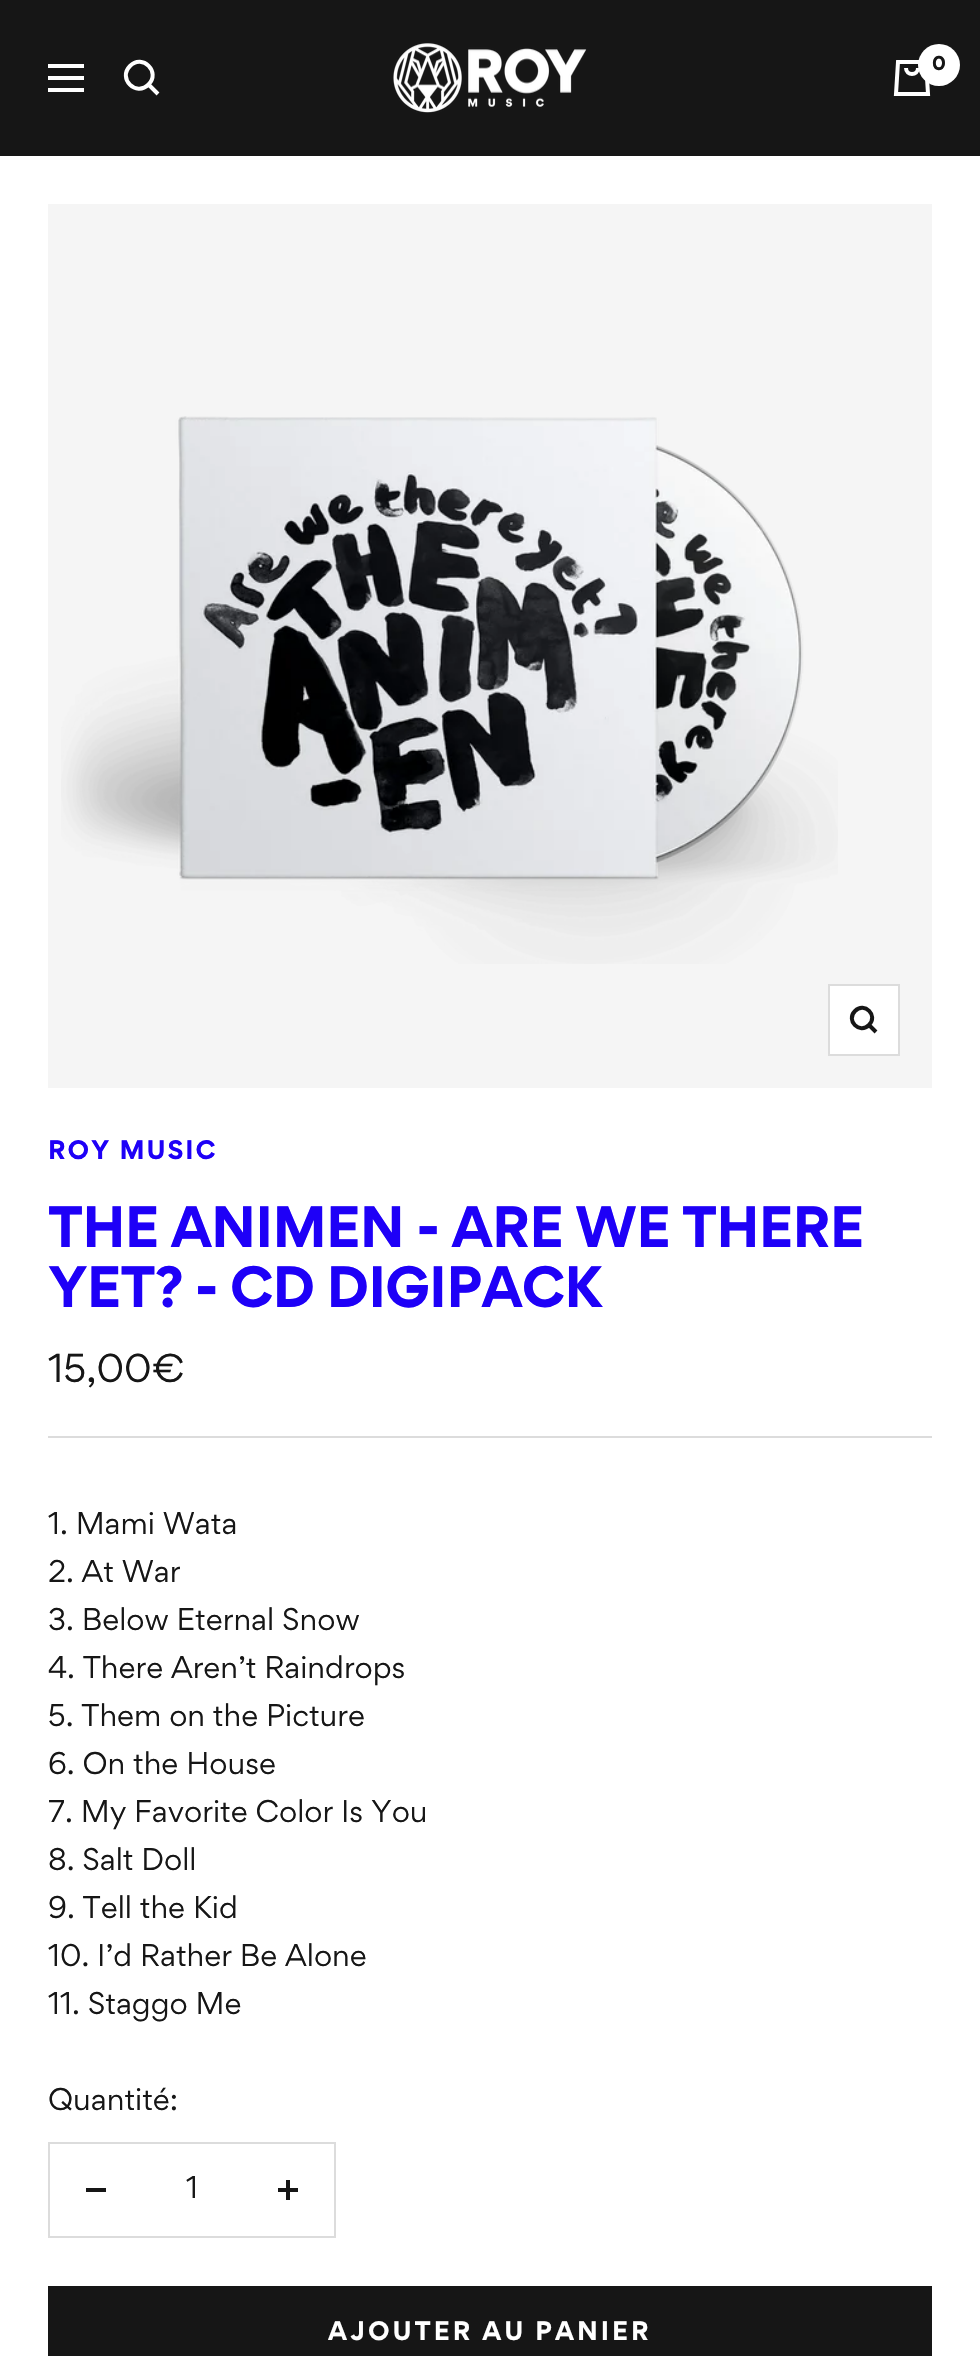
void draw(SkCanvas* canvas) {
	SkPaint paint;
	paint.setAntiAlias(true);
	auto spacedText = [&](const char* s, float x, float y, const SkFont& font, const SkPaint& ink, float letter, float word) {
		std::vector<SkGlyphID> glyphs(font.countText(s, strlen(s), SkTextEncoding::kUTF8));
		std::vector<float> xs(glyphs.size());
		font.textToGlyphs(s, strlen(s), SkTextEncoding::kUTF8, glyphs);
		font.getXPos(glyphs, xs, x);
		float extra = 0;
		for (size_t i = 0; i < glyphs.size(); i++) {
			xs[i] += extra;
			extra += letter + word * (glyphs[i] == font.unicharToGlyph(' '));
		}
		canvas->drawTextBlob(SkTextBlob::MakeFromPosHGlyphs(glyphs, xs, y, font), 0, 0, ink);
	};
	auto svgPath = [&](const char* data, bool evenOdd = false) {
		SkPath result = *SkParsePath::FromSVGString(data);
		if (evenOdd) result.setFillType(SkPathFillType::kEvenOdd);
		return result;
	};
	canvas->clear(0xffffffff);
	paint.setColor(0xff161616);
	canvas->drawRect(SkRect::MakeXYWH(0, 0, 980, 156), paint);
	paint.setStroke(true);
	paint.setStrokeWidth(4);
	paint.setColor(0xffffffff);
	canvas->drawPath(svgPath("M48 66H84M48 90H84ZM48 78H84Z"), paint);
	canvas->drawPath(svgPath("M148.5 84.5C161 72 142.5 53.5 130 66C117.5 78.5 136 97 148.5 84.5ZM148.5 84.5L158 94"), paint);
	canvas->drawImageRect(SkImages::DeferredFromEncodedData(SkData::MakeFromFileName("img1.png")), SkRect::MakeXYWH(393, 43, 194, 70), SkSamplingOptions());
	canvas->drawPath(svgPath("M898 62H926L928 94H896ZM906 68C906 76 918 76 918 68"), paint);
	paint.setStroke(false);
	canvas->drawCircle(939, 65, 21, paint);
	SkFont f1(fontMgr->matchFamilyStyle("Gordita", SkFontStyle::Bold()), 18);
	f1.setSubpixel(true);
	paint.setColor(0xff161616);
	canvas->drawString("0", 932, 70, f1, paint);
	paint.setColor(0xfff5f5f5);
	canvas->drawRect(SkRect::MakeXYWH(48, 204, 884, 884), paint);
	canvas->drawImageRect(SkImages::DeferredFromEncodedData(SkData::MakeFromFileName("img2.png")), SkRect::MakeXYWH(61, 416, 777, 548), SkSamplingOptions());
	paint.setColor(0xffffffff);
	canvas->drawRect(SkRect::MakeXYWH(829, 985, 70, 70), paint);
	paint.setStroke(true);
	paint.setStrokeWidth(2);
	paint.setColor(0xffdcdcdc);
	canvas->drawRect(SkRect::MakeXYWH(829, 985, 70, 70), paint);
	paint.setStrokeWidth(4);
	paint.setColor(0xff161616);
	canvas->drawPath(svgPath("M869 1025C878.5 1015.5 864.5 1001.5 855 1011C845.5 1020.5 859.5 1034.5 869 1025ZM869 1025L876 1032"), paint);
	paint.setStroke(false);
	paint.setColor(0xffdcdcdc);
	canvas->drawRect(SkRect::MakeXYWH(48, 1436, 884, 2), paint);
	SkFont f2(fontMgr->matchFamilyStyle("Gordita", SkFontStyle::Bold()), 24);
	f2.setSubpixel(true);
	paint.setColor(0xff1e00f7);
	spacedText("ROY MUSIC", 48, 1159, f2, paint, 2, 0);
	SkFont f3(fontMgr->matchFamilyStyle("Gordita", SkFontStyle::Bold()), 52);
	f3.setSubpixel(true);
	spacedText("THE ANIMEN - ARE WE THERE", 48, 1247, f3, paint, -0.8, 0);
	spacedText("YET? - CD DIGIPACK", 48, 1307, f3, paint, -0.8, 0);
	SkFont f4(fontMgr->matchFamilyStyle("Gordita", SkFontStyle::Normal()), 36);
	f4.setSubpixel(true);
	paint.setColor(0xff161616);
	canvas->drawString("15,00€", 48, 1382, f4, paint);
	SkFont f5(fontMgr->matchFamilyStyle("Gordita", SkFontStyle::Normal()), 28);
	f5.setSubpixel(true);
	canvas->drawString("1. Mami Wata", 48, 1534, f5, paint);
	canvas->drawString("2. At War", 48, 1582, f5, paint);
	canvas->drawString("3. Below Eternal Snow", 48, 1630, f5, paint);
	canvas->drawString("4. There Aren’t Raindrops", 48, 1678, f5, paint);
	canvas->drawString("5. Them on the Picture", 48, 1726, f5, paint);
	canvas->drawString("6. On the House", 48, 1774, f5, paint);
	canvas->drawString("7. My Favorite Color Is You", 48, 1822, f5, paint);
	canvas->drawString("8. Salt Doll", 48, 1870, f5, paint);
	canvas->drawString("9. Tell the Kid", 48, 1918, f5, paint);
	canvas->drawString("10. I’d Rather Be Alone", 48, 1966, f5, paint);
	canvas->drawString("11. Staggo Me", 48, 2014, f5, paint);
	canvas->drawString("Quantité:", 48, 2110, f5, paint);
	paint.setStroke(true);
	paint.setStrokeWidth(2);
	paint.setColor(0xffdcdcdc);
	canvas->drawRect(SkRect::MakeXYWH(49, 2143, 286, 94), paint);
	paint.setStroke(false);
	paint.setColor(0xff161616);
	canvas->drawRect(SkRect::MakeXYWH(86, 2188, 20, 4), paint);
	canvas->drawString("1", 186, 2198, f5, paint);
	canvas->drawImageRect(SkImages::DeferredFromEncodedData(SkData::MakeFromFileName("img3.png")), SkRect::MakeXYWH(278, 2180, 20, 20), SkSamplingOptions());
	canvas->drawRect(SkRect::MakeXYWH(48, 2286, 884, 70), paint);
	paint.setColor(0xffffffff);
	spacedText("AJOUTER AU PANIER", 328, 2340, f2, paint, 3, 0);
}
